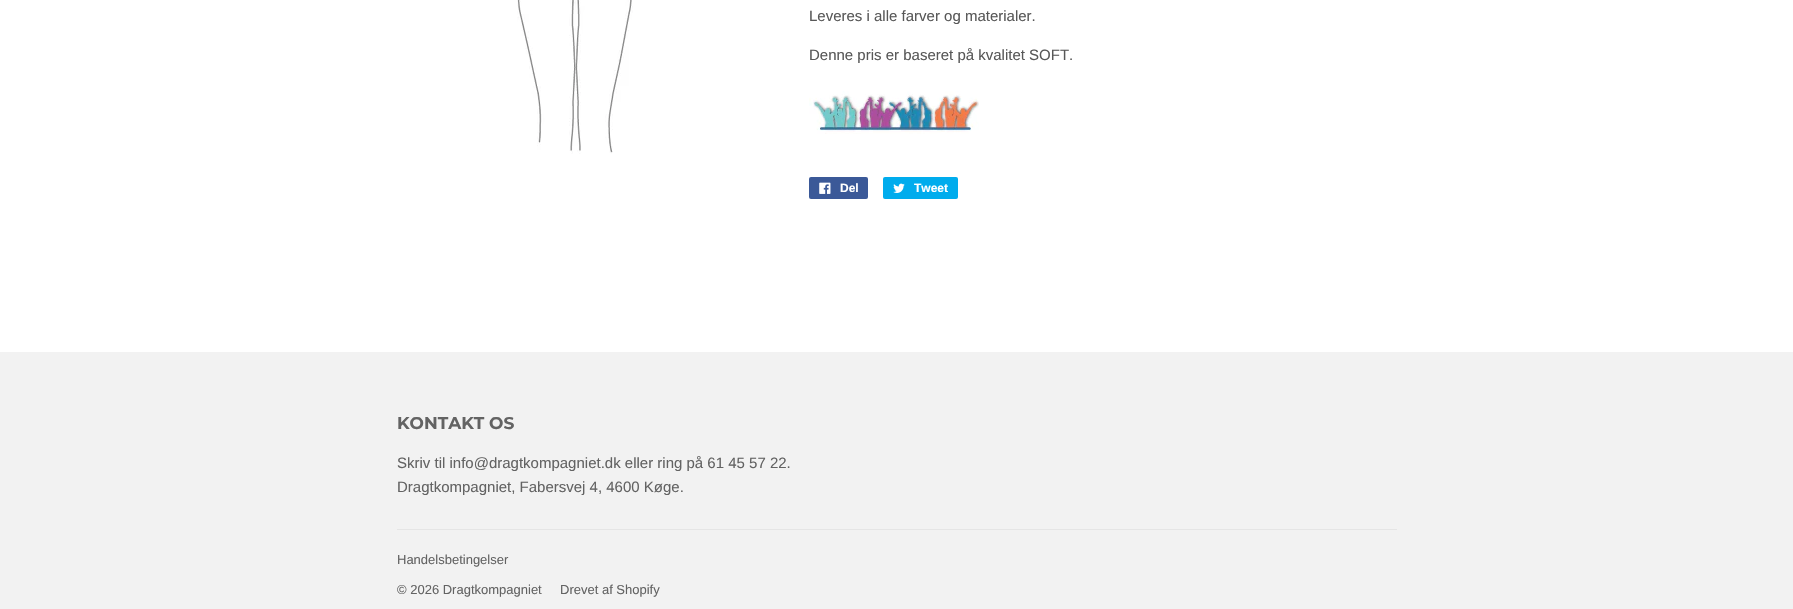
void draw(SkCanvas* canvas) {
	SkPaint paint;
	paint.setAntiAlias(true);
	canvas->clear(0xffffffff);
	canvas->drawImageRect(SkImages::DeferredFromEncodedData(SkData::MakeFromFileName("img1.png")), SkRect::MakeXYWH(517, 0, 116, 154), SkSamplingOptions());
	SkFont f1(fontMgr->matchFamilyStyle("Liberation Sans", SkFontStyle::Normal()), 15);
	f1.setSubpixel(true);
	paint.setColor(0xff585858);
	canvas->drawString("Leveres i alle farver og materialer.", 809, 21, f1, paint);
	canvas->drawString("Denne pris er baseret på kvalitet SOFT.", 809, 60, f1, paint);
	canvas->drawImageRect(SkImages::DeferredFromEncodedData(SkData::MakeFromFileName("img2.png")), SkRect::MakeXYWH(809, 91, 170, 43), SkSamplingOptions());
	paint.setColor(0xff3b5998);
	canvas->drawRoundRect(SkRect::MakeXYWH(809, 177, 59, 22), 2, 2, paint);
	canvas->drawImageRect(SkImages::DeferredFromEncodedData(SkData::MakeFromFileName("img3.png")), SkRect::MakeXYWH(819, 182, 12, 12), SkSamplingOptions());
	SkFont f2(fontMgr->matchFamilyStyle("Liberation Sans", SkFontStyle::Bold()), 12);
	f2.setSubpixel(true);
	paint.setColor(0xffffffff);
	canvas->drawString("Del", 840, 192, f2, paint);
	paint.setColor(0xff00aced);
	canvas->drawRoundRect(SkRect::MakeXYWH(883, 177, 75, 22), 2, 2, paint);
	canvas->drawImageRect(SkImages::DeferredFromEncodedData(SkData::MakeFromFileName("img4.png")), SkRect::MakeXYWH(893, 183, 12, 10), SkSamplingOptions());
	paint.setColor(0xffffffff);
	canvas->drawString("Tweet", 914, 192, f2, paint);
	paint.setColor(0xfff2f2f2);
	canvas->drawRect(SkRect::MakeXYWH(0, 352, 1793, 257), paint);
	SkFont f3(fontMgr->matchFamilyStyle("Montserrat", SkFontStyle(100, SkFontStyle::kNormal_Width, SkFontStyle::kUpright_Slant)), 17);
	f3.setSubpixel(true);
	paint.setColor(0xff636363);
	canvas->drawString("KONTAKT OS", 397, 429, f3, paint);
	canvas->drawString("Skriv til info@dragtkompagniet.dk eller ring på 61 45 57 22.", 397, 468, f1, paint);
	canvas->drawString("Dragtkompagniet, Fabersvej 4, 4600 Køge.", 397, 492, f1, paint);
	paint.setColor(0xffe5e5e5);
	canvas->drawRect(SkRect::MakeXYWH(397, 529, 1000, 1), paint);
	SkFont f4(fontMgr->matchFamilyStyle("Liberation Sans", SkFontStyle::Normal()), 13);
	f4.setSubpixel(true);
	paint.setColor(0xff636363);
	canvas->drawString("Handelsbetingelser", 397, 564, f4, paint);
	canvas->drawString("© 2026 Dragtkompagniet", 397, 594, f4, paint);
	canvas->drawString("Drevet af Shopify", 560, 594, f4, paint);
}
